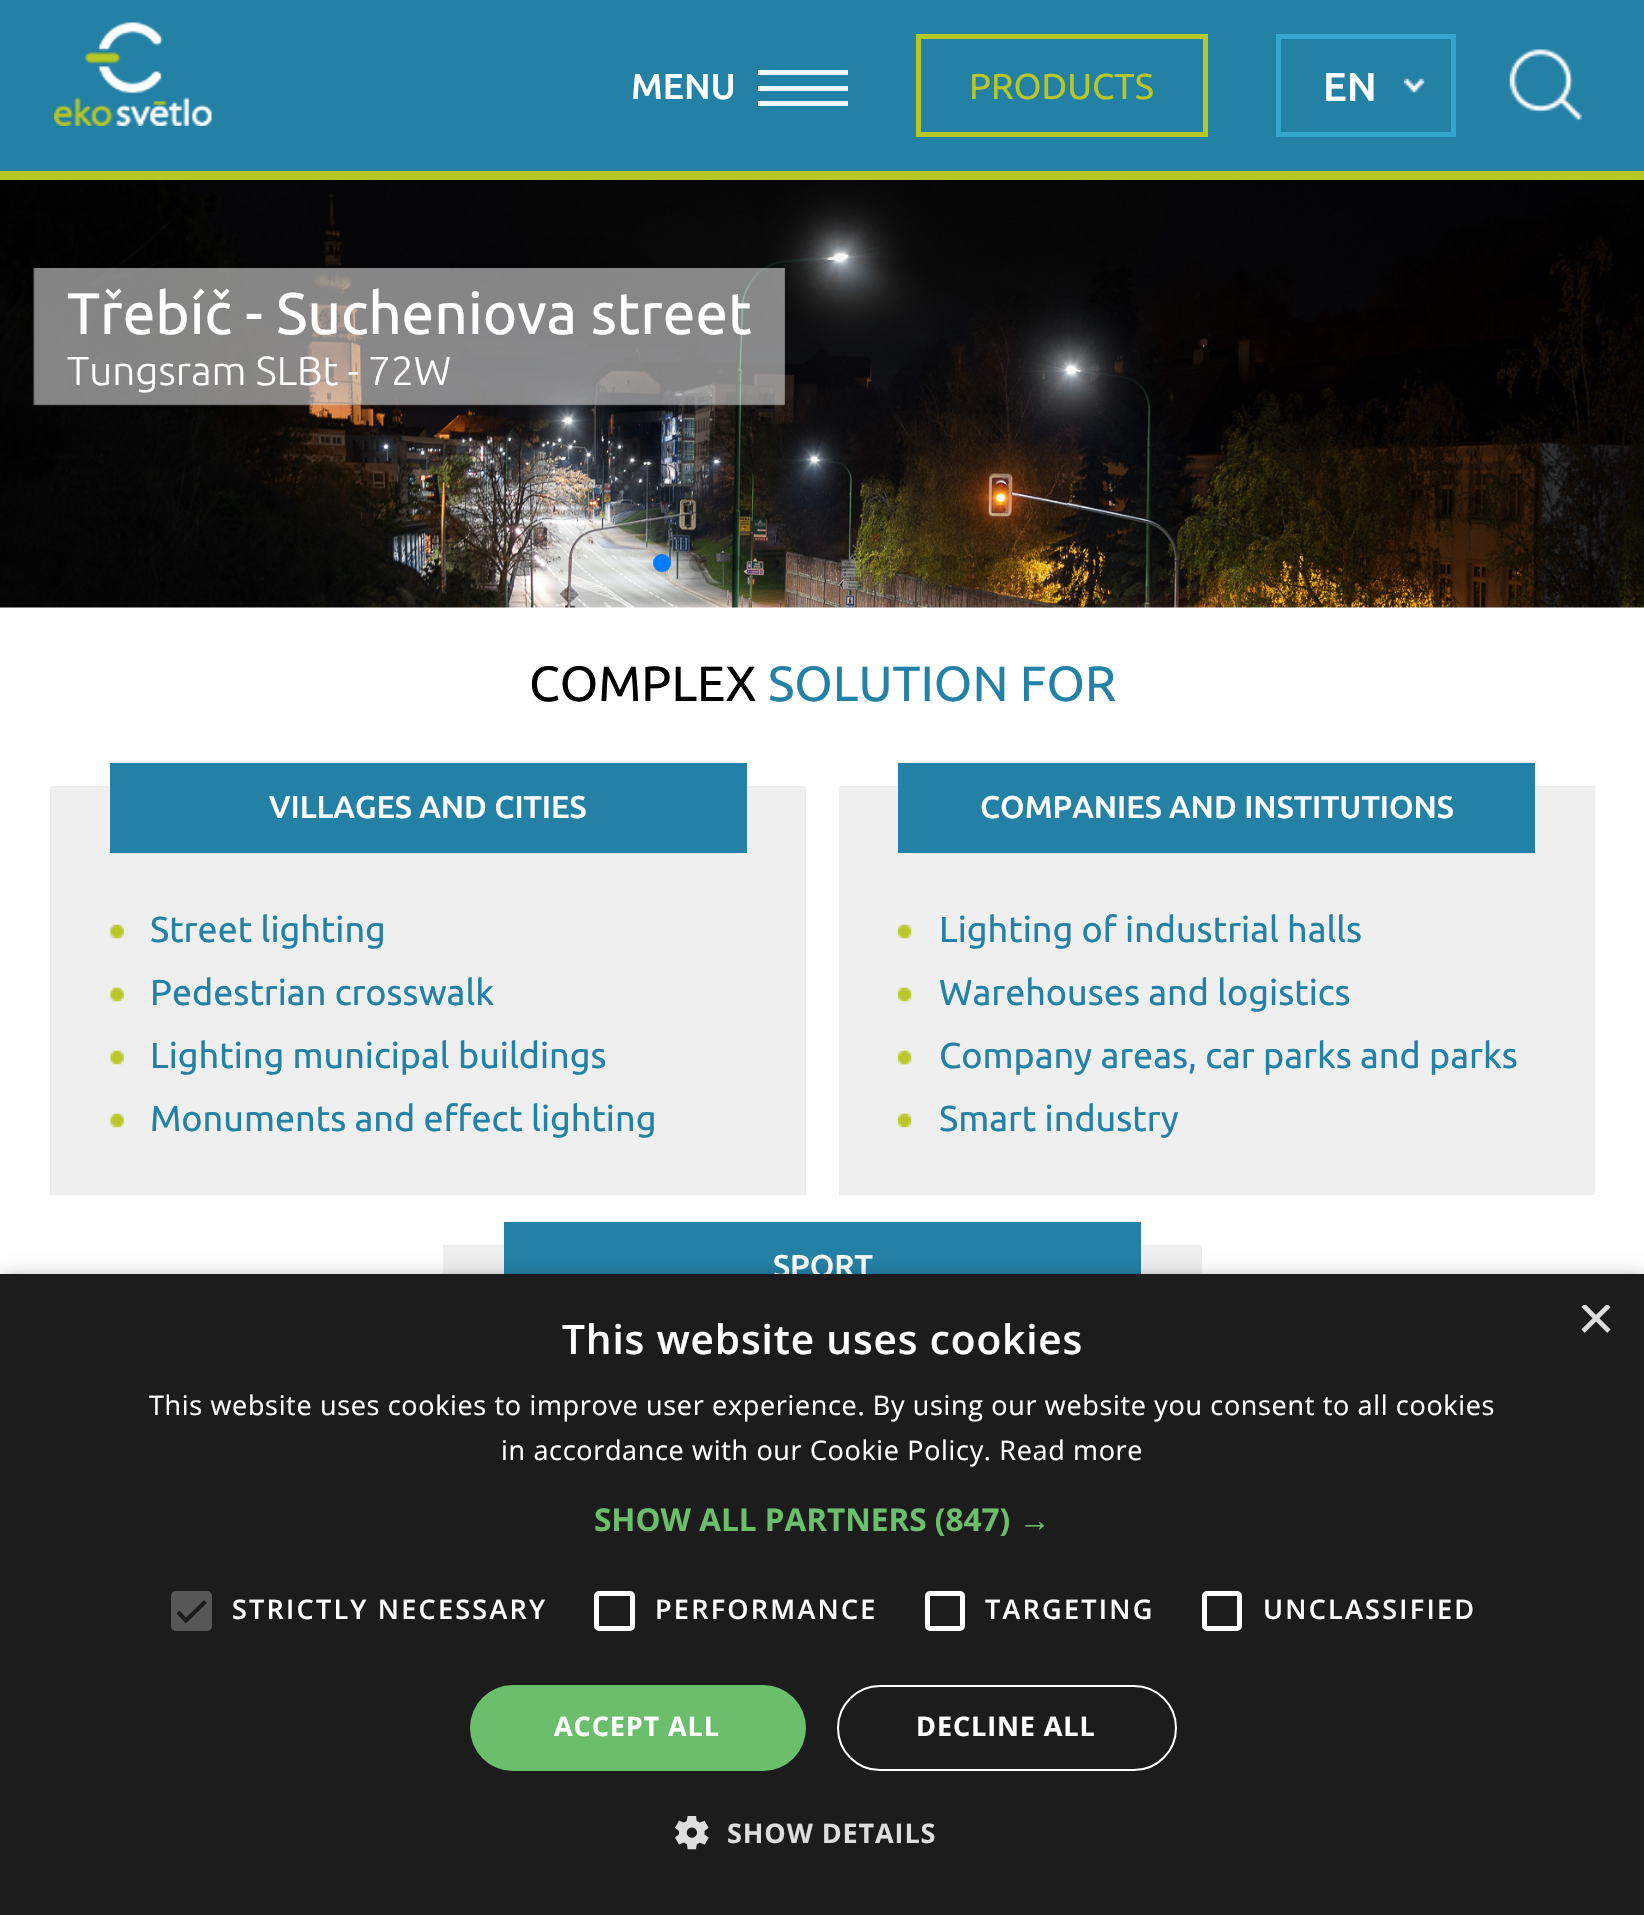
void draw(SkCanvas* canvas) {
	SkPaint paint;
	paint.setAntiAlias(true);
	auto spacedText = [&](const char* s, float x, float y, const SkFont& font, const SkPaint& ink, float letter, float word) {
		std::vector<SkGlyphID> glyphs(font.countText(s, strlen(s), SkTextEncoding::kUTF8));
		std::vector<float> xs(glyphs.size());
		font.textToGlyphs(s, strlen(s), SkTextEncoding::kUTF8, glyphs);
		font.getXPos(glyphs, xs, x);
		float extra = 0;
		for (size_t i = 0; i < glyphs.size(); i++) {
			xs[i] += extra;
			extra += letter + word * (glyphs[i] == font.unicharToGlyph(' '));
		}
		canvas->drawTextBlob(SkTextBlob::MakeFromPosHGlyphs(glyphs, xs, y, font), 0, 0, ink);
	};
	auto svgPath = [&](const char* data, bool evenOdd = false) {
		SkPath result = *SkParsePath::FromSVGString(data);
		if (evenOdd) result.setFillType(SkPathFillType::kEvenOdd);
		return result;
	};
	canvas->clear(0xffffffff);
	paint.setColor(0xff2481a6);
	canvas->drawRect(SkRect::MakeXYWH(0, 0, 1644, 171), paint);
	paint.setColor(0xffb7c726);
	canvas->drawRect(SkRect::MakeXYWH(0, 171, 1644, 9), paint);
	canvas->drawImageRect(SkImages::DeferredFromEncodedData(SkData::MakeFromFileName("img1.png")), SkRect::MakeXYWH(54, 22, 158, 104), SkSamplingOptions());
	SkFont f1(fontMgr->matchFamilyStyle("Ubuntu", SkFontStyle(500, SkFontStyle::kNormal_Width, SkFontStyle::kUpright_Slant)), 36);
	f1.setSubpixel(true);
	paint.setColor(0xffffffff);
	canvas->drawString("MENU", 631, 99, f1, paint);
	canvas->drawRect(SkRect::MakeXYWH(758, 70, 90, 5), paint);
	canvas->drawRect(SkRect::MakeXYWH(758, 86, 90, 5), paint);
	canvas->drawRect(SkRect::MakeXYWH(758, 101, 90, 5), paint);
	paint.setStroke(true);
	paint.setStrokeWidth(5);
	paint.setColor(0xffb7c726);
	canvas->drawRect(SkRect::MakeXYWH(918.5, 36.5, 287, 98), paint);
	SkFont f2(fontMgr->matchFamilyStyle("Ubuntu", SkFontStyle::Normal()), 36);
	f2.setSubpixel(true);
	paint.setStroke(false);
	canvas->drawString("PRODUCTS", 969, 99, f2, paint);
	canvas->drawImageRect(SkImages::DeferredFromEncodedData(SkData::MakeFromFileName("img2.png")), SkRect::MakeXYWH(1404, 78, 21, 15), SkSamplingOptions());
	paint.setStroke(true);
	paint.setColor(0xff35a6cc);
	canvas->drawRect(SkRect::MakeXYWH(1278.5, 36.5, 175, 98), paint);
	SkFont f3(fontMgr->matchFamilyStyle("Ubuntu", SkFontStyle(500, SkFontStyle::kNormal_Width, SkFontStyle::kUpright_Slant)), 40.5);
	f3.setSubpixel(true);
	paint.setStroke(false);
	paint.setColor(0xffffffff);
	canvas->drawString("EN", 1323, 101, f3, paint);
	canvas->drawImageRect(SkImages::DeferredFromEncodedData(SkData::MakeFromFileName("img3.png")), SkRect::MakeXYWH(1509, 49, 73, 73), SkSamplingOptions());
	canvas->drawImageRect(SkImages::DeferredFromEncodedData(SkData::MakeFromFileName("img4.png")), SkRect::MakeXYWH(0, 180, 1644, 428), SkSamplingOptions());
	canvas->drawImageRect(SkImages::DeferredFromEncodedData(SkData::MakeFromFileName("img5.png")), SkRect::MakeXYWH(33, 268, 752, 138), SkSamplingOptions());
	SkFont f4(fontMgr->matchFamilyStyle("Ubuntu", SkFontStyle::Normal()), 58.5);
	f4.setSubpixel(true);
	canvas->drawString("Třebíč - Sucheniova street", 67, 334, f4, paint);
	SkFont f5(fontMgr->matchFamilyStyle("Ubuntu", SkFontStyle(300, SkFontStyle::kNormal_Width, SkFontStyle::kUpright_Slant)), 40.5);
	f5.setSubpixel(true);
	canvas->drawString("Tungsram SLBt - 72W", 67, 385, f5, paint);
	paint.setColor(0xff007aff);
	canvas->drawCircle(662, 563, 9, paint);
	paint.setColor(0x33000000);
	canvas->drawCircle(698, 563, 9, paint);
	canvas->drawCircle(734, 563, 9, paint);
	canvas->drawCircle(770, 563, 9, paint);
	canvas->drawCircle(806, 563, 9, paint);
	canvas->drawCircle(842, 563, 9, paint);
	canvas->drawCircle(878, 563, 9, paint);
	canvas->drawCircle(914, 563, 9, paint);
	canvas->drawCircle(950, 563, 9, paint);
	canvas->drawCircle(986, 563, 9, paint);
	SkFont f6(fontMgr->matchFamilyStyle("Ubuntu", SkFontStyle::Normal()), 49.5);
	f6.setSubpixel(true);
	paint.setColor(0xff000000);
	canvas->drawString("COMPLEX", 529, 701, f6, paint);
	paint.setColor(0xff2481a6);
	canvas->drawString("SOLUTION FOR", 768, 701, f6, paint);
	paint.setColor(0xffefefef);
	canvas->drawRect(SkRect::MakeXYWH(50, 786, 756, 409), paint);
	paint.setColor(0xff2481a6);
	canvas->drawRect(SkRect::MakeXYWH(110, 763, 637, 90), paint);
	SkFont f7(fontMgr->matchFamilyStyle("Ubuntu", SkFontStyle(500, SkFontStyle::kNormal_Width, SkFontStyle::kUpright_Slant)), 31.5);
	f7.setSubpixel(true);
	paint.setColor(0xffffffff);
	canvas->drawString("VILLAGES AND CITIES", 269, 818, f7, paint);
	canvas->drawImageRect(SkImages::DeferredFromEncodedData(SkData::MakeFromFileName("img6.png")), SkRect::MakeXYWH(110, 924, 14, 15), SkSamplingOptions());
	paint.setColor(0xff2481a6);
	canvas->drawString("Street lighting", 150, 942, f2, paint);
	canvas->drawImageRect(SkImages::DeferredFromEncodedData(SkData::MakeFromFileName("img6.png")), SkRect::MakeXYWH(110, 987, 14, 15), SkSamplingOptions());
	canvas->drawString("Pedestrian crosswalk", 150, 1005, f2, paint);
	canvas->drawImageRect(SkImages::DeferredFromEncodedData(SkData::MakeFromFileName("img6.png")), SkRect::MakeXYWH(110, 1050, 14, 15), SkSamplingOptions());
	canvas->drawString("Lighting municipal buildings", 150, 1068, f2, paint);
	canvas->drawImageRect(SkImages::DeferredFromEncodedData(SkData::MakeFromFileName("img6.png")), SkRect::MakeXYWH(110, 1113, 14, 15), SkSamplingOptions());
	canvas->drawString("Monuments and effect lighting", 150, 1131, f2, paint);
	paint.setColor(0xffefefef);
	canvas->drawRect(SkRect::MakeXYWH(839, 786, 756, 409), paint);
	paint.setColor(0xff2481a6);
	canvas->drawRect(SkRect::MakeXYWH(898, 763, 637, 90), paint);
	paint.setColor(0xffffffff);
	canvas->drawString("COMPANIES AND INSTITUTIONS", 980, 818, f7, paint);
	canvas->drawImageRect(SkImages::DeferredFromEncodedData(SkData::MakeFromFileName("img7.png")), SkRect::MakeXYWH(897, 924, 15, 15), SkSamplingOptions());
	paint.setColor(0xff2481a6);
	canvas->drawString("Lighting of industrial halls", 939, 942, f2, paint);
	canvas->drawImageRect(SkImages::DeferredFromEncodedData(SkData::MakeFromFileName("img7.png")), SkRect::MakeXYWH(897, 987, 15, 15), SkSamplingOptions());
	canvas->drawString("Warehouses and logistics", 939, 1005, f2, paint);
	canvas->drawImageRect(SkImages::DeferredFromEncodedData(SkData::MakeFromFileName("img7.png")), SkRect::MakeXYWH(897, 1050, 15, 15), SkSamplingOptions());
	canvas->drawString("Company areas, car parks and parks", 939, 1068, f2, paint);
	canvas->drawImageRect(SkImages::DeferredFromEncodedData(SkData::MakeFromFileName("img7.png")), SkRect::MakeXYWH(897, 1113, 15, 15), SkSamplingOptions());
	canvas->drawString("Smart industry", 939, 1131, f2, paint);
	paint.setColor(0xffefefef);
	canvas->drawRect(SkRect::MakeXYWH(443, 1245, 759, 29), paint);
	paint.setColor(0xff2481a6);
	canvas->drawRect(SkRect::MakeXYWH(504, 1222, 637, 52), paint);
	paint.setColor(0xffffffff);
	canvas->drawString("SPORT", 773, 1277, f7, paint);
	paint.setColor(0x59000000);
	paint.setMaskFilter(SkMaskFilter::MakeBlur(kNormal_SkBlurStyle, 9));
	canvas->drawRect(SkRect::MakeXYWH(2, 1278, 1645, 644), paint);
	paint.setMaskFilter(nullptr);
	paint.setColor(0xff1c1c1c);
	canvas->drawRect(SkRect::MakeXYWH(0, 1274, 1644, 641), paint);
	canvas->save();
	canvas->clipRect(SkRect::MakeXYWH(1577, 1305, 34, 34));
	SkFont f8(fontMgr->matchFamilyStyle("Liberation Sans", SkFontStyle::Normal()), 65);
	f8.setSubpixel(true);
	paint.setColor(0xffdddddd);
	canvas->drawString("×", 1577, 1340, f8, paint);
	canvas->restore();
	SkFont f9(fontMgr->matchFamilyStyle("Open Sans", SkFontStyle(600, SkFontStyle::kNormal_Width, SkFontStyle::kUpright_Slant)), 40.5);
	f9.setSubpixel(true);
	paint.setColor(0xffffffff);
	spacedText("This website uses cookies", 562, 1354, f9, paint, 0.9, 0);
	SkFont f10(fontMgr->matchFamilyStyle("Open Sans", SkFontStyle::Normal()), 27);
	f10.setSubpixel(true);
	spacedText("This website uses cookies to improve user experience. By using our website you consent to all cookies", 149, 1415, f10, paint, 0.67, 0);
	spacedText("in accordance with our Cookie Policy. Read more", 501, 1460, f10, paint, 0.67, 0);
	SkFont f11(fontMgr->matchFamilyStyle("Open Sans", SkFontStyle::Bold()), 31.5);
	f11.setSubpixel(true);
	paint.setColor(0xff6bbe6b);
	canvas->drawString("SHOW ALL PARTNERS (847)", 594, 1531, f11, paint);
	SkFont f12(fontMgr->matchFamilyStyle("Liberation Sans", SkFontStyle::Bold()), 31.5);
	f12.setSubpixel(true);
	canvas->drawString("→", 1019, 1531, f12, paint);
	paint.setColor(0xff575757);
	canvas->drawRoundRect(SkRect::MakeXYWH(171, 1591, 41, 40), 5, 5, paint);
	paint.setStroke(true);
	paint.setStrokeWidth(4.1);
	paint.setColor(0xff1c1c1c);
	canvas->drawPath(svgPath("M178 1612L186 1620.5L205.5 1601.5"), paint);
	SkFont f13(fontMgr->matchFamilyStyle("Open Sans", SkFontStyle(600, SkFontStyle::kNormal_Width, SkFontStyle::kUpright_Slant)), 27);
	f13.setSubpixel(true);
	paint.setStroke(false);
	paint.setColor(0xffffffff);
	spacedText("STRICTLY NECESSARY", 232, 1619, f13, paint, 2.25, 0);
	paint.setStroke(true);
	paint.setStrokeWidth(5);
	canvas->drawRoundRect(SkRect::MakeXYWH(596.5, 1593.5, 36, 35), 2.5, 2.5, paint);
	paint.setStroke(false);
	spacedText("PERFORMANCE", 655, 1619, f13, paint, 2.25, 0);
	paint.setStroke(true);
	canvas->drawRoundRect(SkRect::MakeXYWH(927.5, 1593.5, 35, 35), 2.5, 2.5, paint);
	paint.setStroke(false);
	spacedText("TARGETING", 985, 1619, f13, paint, 2.25, 0);
	paint.setStroke(true);
	canvas->drawRoundRect(SkRect::MakeXYWH(1204.5, 1593.5, 35, 35), 2.5, 2.5, paint);
	paint.setStroke(false);
	spacedText("UNCLASSIFIED", 1263, 1619, f13, paint, 2.25, 0);
	paint.setColor(0xff6bbe6b);
	canvas->drawRoundRect(SkRect::MakeXYWH(470, 1685, 336, 86), 43, 43, paint);
	SkFont f14(fontMgr->matchFamilyStyle("Open Sans", SkFontStyle::Bold()), 27);
	f14.setSubpixel(true);
	paint.setColor(0xffffffff);
	spacedText("ACCEPT ALL", 554, 1736, f14, paint, 0.9, 0);
	paint.setStroke(true);
	paint.setStrokeWidth(2);
	canvas->drawRoundRect(SkRect::MakeXYWH(838, 1686, 338, 84), 42, 42, paint);
	paint.setStroke(false);
	spacedText("DECLINE ALL", 916, 1736, f14, paint, 0.9, 0);
	canvas->drawImageRect(SkImages::DeferredFromEncodedData(SkData::MakeFromFileName("img8.png")), SkRect::MakeXYWH(675, 1816, 34, 34), SkSamplingOptions());
	paint.setColor(0xffdddddd);
	spacedText("SHOW DETAILS", 727, 1843, f14, paint, 0.9, 0);
}
